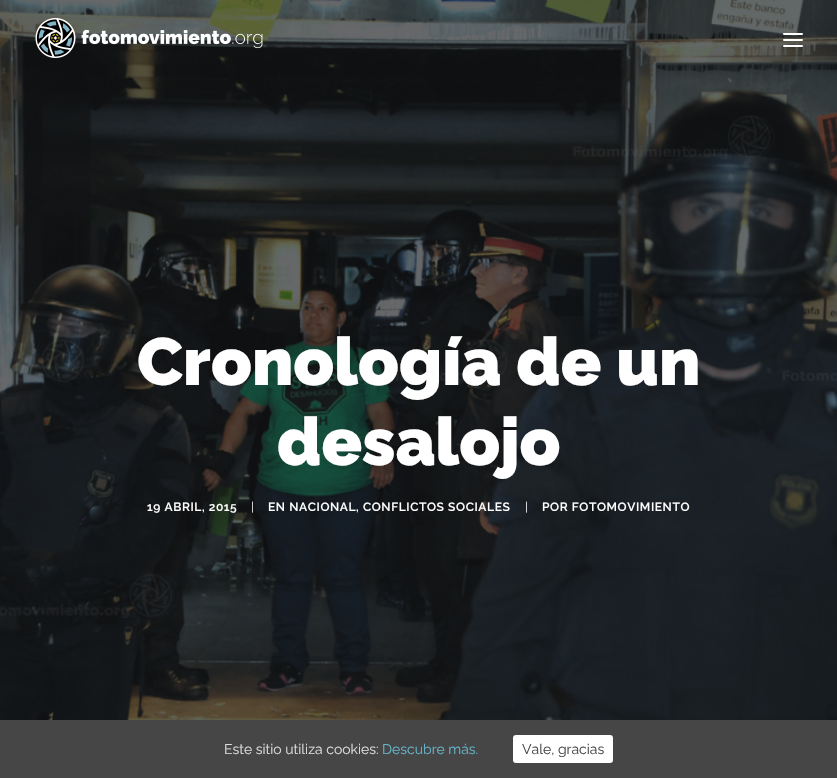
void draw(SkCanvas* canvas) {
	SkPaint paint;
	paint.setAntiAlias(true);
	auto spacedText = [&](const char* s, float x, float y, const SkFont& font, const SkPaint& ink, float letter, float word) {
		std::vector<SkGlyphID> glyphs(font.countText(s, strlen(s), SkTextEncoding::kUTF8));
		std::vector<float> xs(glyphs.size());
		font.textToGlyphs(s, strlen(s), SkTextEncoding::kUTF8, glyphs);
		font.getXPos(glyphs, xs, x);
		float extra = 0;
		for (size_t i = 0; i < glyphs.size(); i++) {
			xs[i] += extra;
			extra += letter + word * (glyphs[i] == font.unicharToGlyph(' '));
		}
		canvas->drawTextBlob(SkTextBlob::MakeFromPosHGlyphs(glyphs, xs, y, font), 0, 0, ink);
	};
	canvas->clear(0xffffffff);
	canvas->drawImageRect(SkImages::DeferredFromEncodedData(SkData::MakeFromFileName("img2.png")), SkRect::MakeXYWH(0, 0, 837, 720), SkSamplingOptions());
	canvas->drawImageRect(SkImages::DeferredFromEncodedData(SkData::MakeFromFileName("img1.png")), SkRect::MakeXYWH(35, 18, 228, 40), SkSamplingOptions());
	paint.setColor(0xffffffff);
	canvas->drawRoundRect(SkRect::MakeXYWH(783, 39, 20, 2), 1, 1, paint);
	canvas->drawRoundRect(SkRect::MakeXYWH(783, 33, 20, 2), 1, 1, paint);
	canvas->drawRoundRect(SkRect::MakeXYWH(783, 45, 20, 2), 1, 1, paint);
	SkFont f1(fontMgr->matchFamilyStyle("Raleway", SkFontStyle(900, SkFontStyle::kNormal_Width, SkFontStyle::kUpright_Slant)), 66.75);
	f1.setSubpixel(true);
	canvas->drawString("Cronología de un", 137, 385, f1, paint);
	canvas->drawString("desalojo", 277, 465, f1, paint);
	SkFont f2(fontMgr->matchFamilyStyle("Raleway", SkFontStyle(600, SkFontStyle::kNormal_Width, SkFontStyle::kUpright_Slant)), 12);
	f2.setSubpixel(true);
	spacedText("19 ABRIL, 2015", 147, 511, f2, paint, 0.6, 0);
	SkFont f3(fontMgr->matchFamilyStyle("Raleway", SkFontStyle::Normal()), 12);
	f3.setSubpixel(true);
	spacedText("|", 251, 511, f3, paint, 0.6, 0);
	spacedText("EN NACIONAL, CONFLICTOS SOCIALES", 268, 511, f2, paint, 0.6, 0);
	spacedText("|", 525, 511, f3, paint, 0.6, 0);
	spacedText("POR FOTOMOVIMIENTO", 542, 511, f2, paint, 0.6, 0);
	paint.setColor(0xff464646);
	canvas->drawRect(SkRect::MakeXYWH(0, 720, 837, 58), paint);
	SkFont f4(fontMgr->matchFamilyStyle("Raleway", SkFontStyle::Normal()), 14);
	f4.setSubpixel(true);
	paint.setColor(0xffdddddd);
	canvas->drawString("Este sitio utiliza cookies:", 224, 754, f4, paint);
	paint.setColor(0xff65b5c9);
	canvas->drawString("Descubre más.", 382, 754, f4, paint);
	paint.setColor(0xffffffff);
	canvas->drawRoundRect(SkRect::MakeXYWH(513, 735, 100, 28), 3, 3, paint);
	paint.setColor(0xff464646);
	canvas->drawString("Vale, gracias", 522, 754, f4, paint);
}
